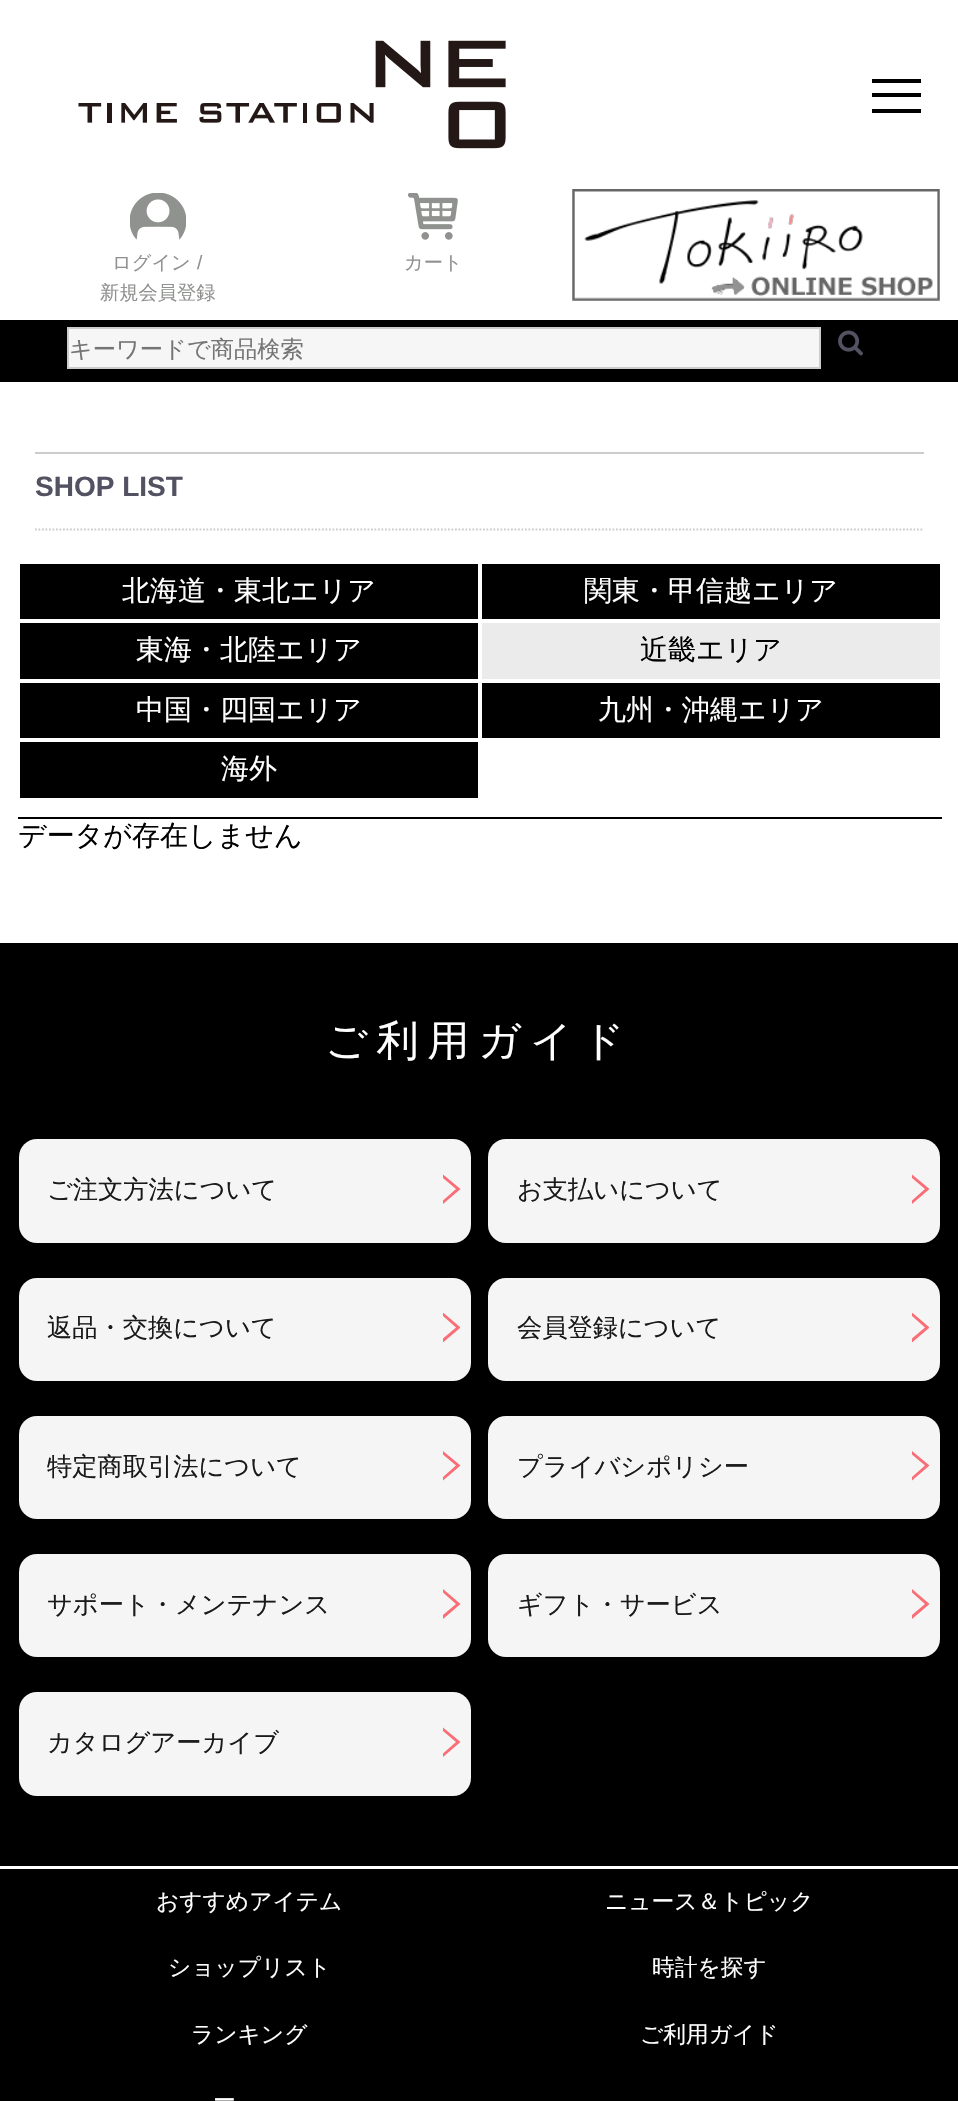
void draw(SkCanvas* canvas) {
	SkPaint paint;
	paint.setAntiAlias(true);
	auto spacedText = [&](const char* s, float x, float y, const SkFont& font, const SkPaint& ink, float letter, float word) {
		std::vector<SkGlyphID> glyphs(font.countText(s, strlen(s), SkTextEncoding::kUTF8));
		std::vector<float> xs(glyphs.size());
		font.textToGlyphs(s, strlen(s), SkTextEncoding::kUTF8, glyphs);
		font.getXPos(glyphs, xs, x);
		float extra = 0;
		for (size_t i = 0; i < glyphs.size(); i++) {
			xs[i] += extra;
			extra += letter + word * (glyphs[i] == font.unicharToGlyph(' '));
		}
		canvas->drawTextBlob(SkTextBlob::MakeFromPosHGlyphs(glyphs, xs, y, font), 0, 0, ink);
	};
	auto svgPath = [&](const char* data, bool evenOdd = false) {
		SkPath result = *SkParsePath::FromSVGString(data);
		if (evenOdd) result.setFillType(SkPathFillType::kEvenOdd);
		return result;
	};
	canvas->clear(0xffffffff);
	canvas->drawImageRect(SkImages::DeferredFromEncodedData(SkData::MakeFromFileName("img1.png")), SkRect::MakeXYWH(78, 40, 428, 109), SkSamplingOptions());
	paint.setColor(0xff000000);
	canvas->drawRect(SkRect::MakeXYWH(872, 79, 49, 4), paint);
	canvas->drawRect(SkRect::MakeXYWH(872, 93, 49, 4), paint);
	canvas->drawRect(SkRect::MakeXYWH(872, 109, 49, 4), paint);
	canvas->drawImageRect(SkImages::DeferredFromEncodedData(SkData::MakeFromFileName("img2.png")), SkRect::MakeXYWH(130, 193, 56, 47), SkSamplingOptions());
	SkFont f1(fontMgr->matchFamilyStyle("WenQuanYi Zen Hei", SkFontStyle(500, SkFontStyle::kNormal_Width, SkFontStyle::kUpright_Slant)), 19.25);
	f1.setSubpixel(true);
	paint.setColor(0xff90928f);
	canvas->drawString("ログイン", 112, 269, f1, paint);
	SkFont f2(fontMgr->matchFamilyStyle("Liberation Sans", SkFontStyle::Normal()), 19.25);
	f2.setSubpixel(true);
	canvas->drawString("/", 197, 269, f2, paint);
	canvas->drawString("新規会員登録", 100, 299, f1, paint);
	canvas->drawImageRect(SkImages::DeferredFromEncodedData(SkData::MakeFromFileName("img3.png")), SkRect::MakeXYWH(408, 193, 50, 47), SkSamplingOptions());
	canvas->drawString("カート", 404, 269, f1, paint);
	canvas->drawImageRect(SkImages::DeferredFromEncodedData(SkData::MakeFromFileName("img4.png")), SkRect::MakeXYWH(572, 189, 368, 112), SkSamplingOptions());
	paint.setColor(0xff000000);
	canvas->drawRect(SkRect::MakeXYWH(0, 320, 958, 62), paint);
	paint.setColor(0xfff6f6f6);
	canvas->drawRect(SkRect::MakeXYWH(68, 328, 752, 40), paint);
	paint.setStroke(true);
	paint.setStrokeWidth(2);
	paint.setColor(0xffcccccc);
	canvas->drawRect(SkRect::MakeXYWH(68, 328, 752, 40), paint);
	SkFont f3(fontMgr->matchFamilyStyle("WenQuanYi Zen Hei", SkFontStyle(500, SkFontStyle::kNormal_Width, SkFontStyle::kUpright_Slant)), 23.25);
	f3.setSubpixel(true);
	paint.setStroke(false);
	paint.setColor(0xff757575);
	canvas->drawString("キーワードで商品検索", 69, 357, f3, paint);
	canvas->drawImageRect(SkImages::DeferredFromEncodedData(SkData::MakeFromFileName("img5.png")), SkRect::MakeXYWH(838, 330, 25, 26), SkSamplingOptions());
	paint.setColor(0xffcccccc);
	canvas->drawRect(SkRect::MakeXYWH(35, 452, 889, 2), paint);
	paint.setStroke(true);
	paint.setStrokeWidth(1.8);
	paint.setPathEffect(SkDashPathEffect::Make({{1.75f, 1.75f}}, 0));
	canvas->drawPath(svgPath("M35 529.5H924"), paint);
	paint.setPathEffect(nullptr);
	SkFont f4(fontMgr->matchFamilyStyle("Liberation Sans", SkFontStyle::Bold()), 28);
	f4.setSubpixel(true);
	paint.setStroke(false);
	paint.setColor(0xff525263);
	canvas->drawString("SHOP LIST", 35, 496, f4, paint);
	paint.setColor(0xff000000);
	canvas->drawRect(SkRect::MakeXYWH(20, 564, 458, 55), paint);
	SkFont f5(fontMgr->matchFamilyStyle("WenQuanYi Zen Hei", SkFontStyle(500, SkFontStyle::kNormal_Width, SkFontStyle::kUpright_Slant)), 28);
	f5.setSubpixel(true);
	paint.setColor(0xffffffff);
	canvas->drawString("北海道・東北エリア", 122, 600, f5, paint);
	paint.setColor(0xff000000);
	canvas->drawRect(SkRect::MakeXYWH(482, 564, 458, 55), paint);
	paint.setColor(0xffffffff);
	canvas->drawString("関東・甲信越エリア", 584, 600, f5, paint);
	paint.setColor(0xff000000);
	canvas->drawRect(SkRect::MakeXYWH(20, 623, 458, 56), paint);
	paint.setColor(0xffffffff);
	canvas->drawString("東海・北陸エリア", 136, 659, f5, paint);
	paint.setColor(0xffebebeb);
	canvas->drawRect(SkRect::MakeXYWH(482, 623, 458, 56), paint);
	paint.setColor(0xff000000);
	canvas->drawString("近畿エリア", 640, 659, f5, paint);
	canvas->drawRect(SkRect::MakeXYWH(20, 683, 458, 55), paint);
	paint.setColor(0xffffffff);
	canvas->drawString("中国・四国エリア", 136, 719, f5, paint);
	paint.setColor(0xff000000);
	canvas->drawRect(SkRect::MakeXYWH(482, 683, 458, 55), paint);
	paint.setColor(0xffffffff);
	canvas->drawString("九州・沖縄エリア", 598, 719, f5, paint);
	paint.setColor(0xff000000);
	canvas->drawRect(SkRect::MakeXYWH(20, 742, 458, 56), paint);
	paint.setColor(0xffffffff);
	canvas->drawString("海外", 221, 778, f5, paint);
	paint.setColor(0xff000000);
	canvas->drawRect(SkRect::MakeXYWH(18, 817, 924, 2), paint);
	canvas->drawString("データが存在しません", 18, 845, f5, paint);
	canvas->drawRect(SkRect::MakeXYWH(0, 943, 958, 923), paint);
	SkFont f6(fontMgr->matchFamilyStyle("WenQuanYi Zen Hei", SkFontStyle(500, SkFontStyle::kNormal_Width, SkFontStyle::kUpright_Slant)), 42);
	f6.setSubpixel(true);
	paint.setColor(0xffffffff);
	spacedText("ご利用ガイド", 325, 1055, f6, paint, 8.75, 0);
	paint.setColor(0xfff4f5f4);
	canvas->drawRoundRect(SkRect::MakeXYWH(19, 1139, 452, 104), 18, 18, paint);
	SkFont f7(fontMgr->matchFamilyStyle("WenQuanYi Zen Hei", SkFontStyle(500, SkFontStyle::kNormal_Width, SkFontStyle::kUpright_Slant)), 25.25);
	f7.setSubpixel(true);
	paint.setColor(0xff1a1a1a);
	canvas->drawString("ご注文方法について", 47, 1198, f7, paint);
	paint.setColor(0xfffa6d76);
	canvas->drawPath(svgPath("M443 1204V1200.5L456 1189L443 1178V1174.5L460.5 1189Z"), paint);
	paint.setColor(0xfff4f5f4);
	canvas->drawRoundRect(SkRect::MakeXYWH(488, 1139, 452, 104), 18, 18, paint);
	paint.setColor(0xff1a1a1a);
	canvas->drawString("お支払いについて", 517, 1198, f7, paint);
	paint.setColor(0xfffa6d76);
	canvas->drawPath(svgPath("M912 1204V1200.5L925 1189L912 1178V1174.5L929.5 1189Z"), paint);
	paint.setColor(0xfff4f5f4);
	canvas->drawRoundRect(SkRect::MakeXYWH(19, 1278, 452, 103), 18, 18, paint);
	paint.setColor(0xff1a1a1a);
	canvas->drawString("返品・交換について", 47, 1336, f7, paint);
	canvas->save();
	canvas->clipRect(SkRect::MakeXYWH(443, 1313, 17, 29));
	paint.setColor(0xfffa6d76);
	canvas->drawPath(svgPath("M443 1342.5V1338.5L456 1327.5L443 1316V1312.5L460.5 1327.5Z"), paint);
	canvas->restore();
	paint.setColor(0xfff4f5f4);
	canvas->drawRoundRect(SkRect::MakeXYWH(488, 1278, 452, 103), 18, 18, paint);
	paint.setColor(0xff1a1a1a);
	canvas->drawString("会員登録について", 517, 1336, f7, paint);
	canvas->save();
	canvas->clipRect(SkRect::MakeXYWH(912, 1313, 17, 29));
	paint.setColor(0xfffa6d76);
	canvas->drawPath(svgPath("M912 1342.5V1338.5L925 1327.5L912 1316V1312.5L929.5 1327.5Z"), paint);
	canvas->restore();
	paint.setColor(0xfff4f5f4);
	canvas->drawRoundRect(SkRect::MakeXYWH(19, 1416, 452, 103), 18, 18, paint);
	paint.setColor(0xff1a1a1a);
	canvas->drawString("特定商取引法について", 47, 1475, f7, paint);
	paint.setColor(0xfffa6d76);
	canvas->drawPath(svgPath("M443 1480.5V1477L456 1465.5L443 1454.5V1451L460.5 1465.5Z"), paint);
	paint.setColor(0xfff4f5f4);
	canvas->drawRoundRect(SkRect::MakeXYWH(488, 1416, 452, 103), 18, 18, paint);
	paint.setColor(0xff1a1a1a);
	canvas->drawString("プライバシポリシー", 517, 1475, f7, paint);
	paint.setColor(0xfffa6d76);
	canvas->drawPath(svgPath("M912 1480.5V1477L925 1465.5L912 1454.5V1451L929.5 1465.5Z"), paint);
	paint.setColor(0xfff4f5f4);
	canvas->drawRoundRect(SkRect::MakeXYWH(19, 1554, 452, 103), 18, 18, paint);
	paint.setColor(0xff1a1a1a);
	canvas->drawString("サポート・メンテナンス", 47, 1613, f7, paint);
	paint.setColor(0xfffa6d76);
	canvas->drawPath(svgPath("M443 1619V1615L456 1604L443 1592.5V1589L460.5 1604Z"), paint);
	paint.setColor(0xfff4f5f4);
	canvas->drawRoundRect(SkRect::MakeXYWH(488, 1554, 452, 103), 18, 18, paint);
	paint.setColor(0xff1a1a1a);
	canvas->drawString("ギフト・サービス", 517, 1613, f7, paint);
	paint.setColor(0xfffa6d76);
	canvas->drawPath(svgPath("M912 1619V1615L925 1604L912 1592.5V1589L929.5 1604Z"), paint);
	paint.setColor(0xfff4f5f4);
	canvas->drawRoundRect(SkRect::MakeXYWH(19, 1692, 452, 104), 18, 18, paint);
	paint.setColor(0xff1a1a1a);
	canvas->drawString("カタログアーカイブ", 47, 1751, f7, paint);
	paint.setColor(0xfffa6d76);
	canvas->drawPath(svgPath("M443 1757V1753.5L456 1742L443 1731V1727.5L460.5 1742Z"), paint);
	paint.setColor(0xff000000);
	canvas->drawRect(SkRect::MakeXYWH(0, 1869, 958, 232), paint);
	SkFont f8(fontMgr->matchFamilyStyle("WenQuanYi Zen Hei", SkFontStyle(500, SkFontStyle::kNormal_Width, SkFontStyle::kUpright_Slant)), 22.75);
	f8.setSubpixel(true);
	paint.setColor(0xffffffff);
	canvas->drawString("おすすめアイテム", 156, 1909, f8, paint);
	canvas->drawString("ニュース＆トピック", 605, 1909, f8, paint);
	canvas->drawString("ショップリスト", 168, 1975, f8, paint);
	canvas->drawString("時計を探す", 652, 1975, f8, paint);
	canvas->drawString("ランキング", 191, 2042, f8, paint);
	canvas->drawString("ご利用ガイド", 640, 2042, f8, paint);
	canvas->drawString("ー", 213, 2108, f8, paint);
}
